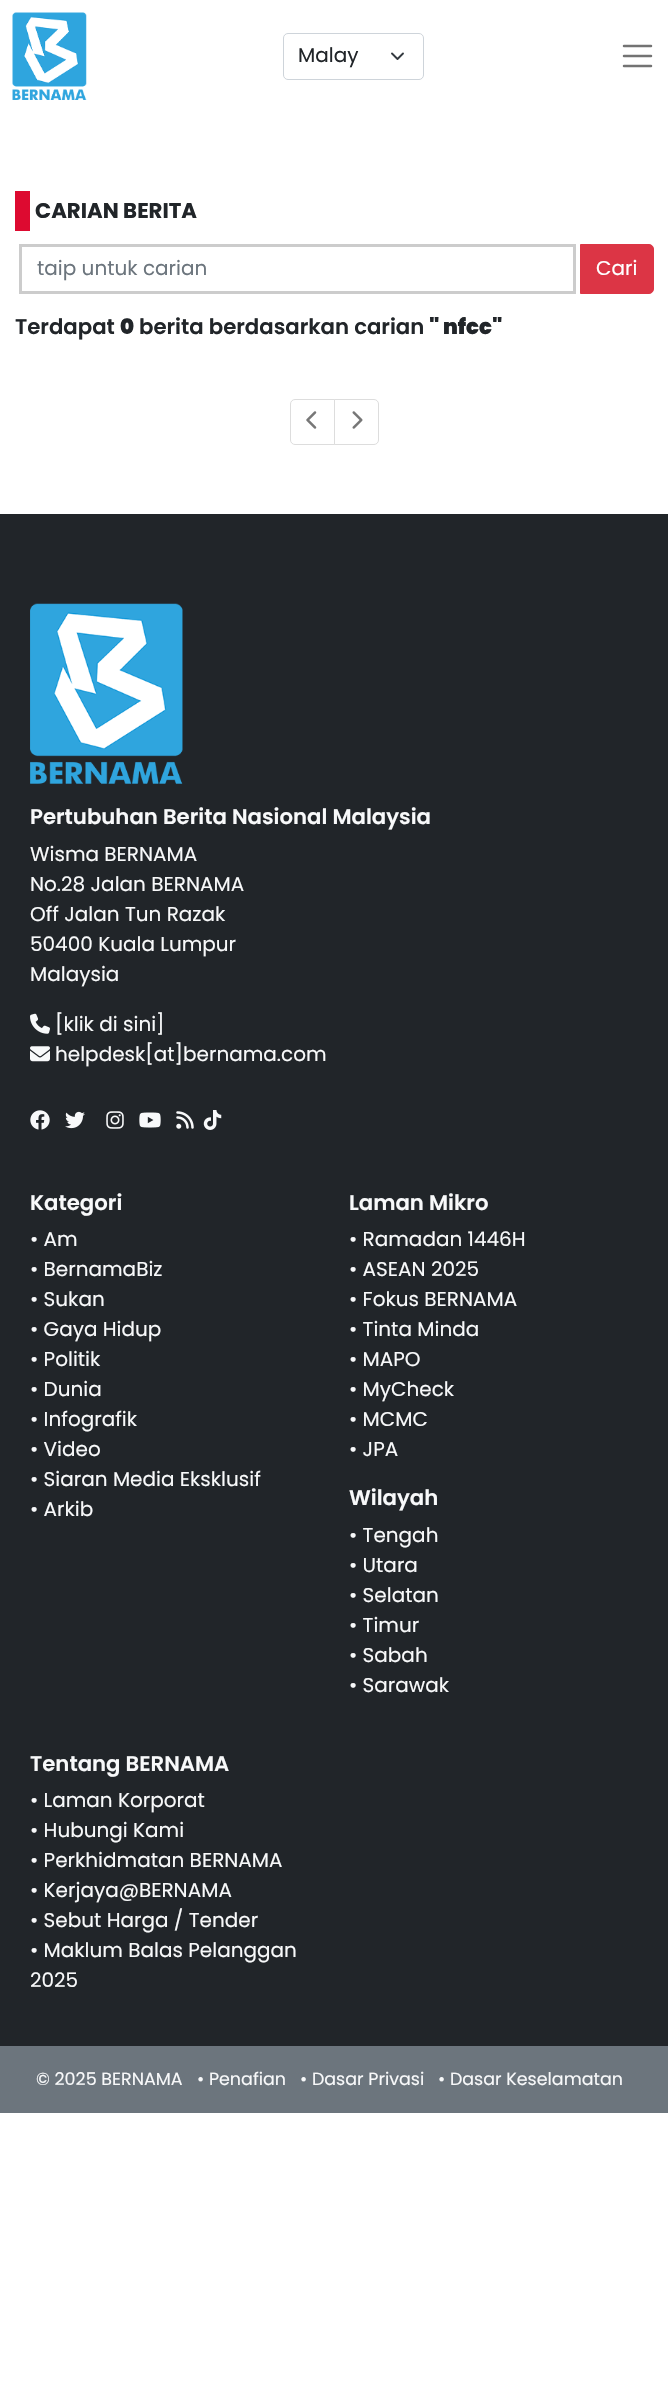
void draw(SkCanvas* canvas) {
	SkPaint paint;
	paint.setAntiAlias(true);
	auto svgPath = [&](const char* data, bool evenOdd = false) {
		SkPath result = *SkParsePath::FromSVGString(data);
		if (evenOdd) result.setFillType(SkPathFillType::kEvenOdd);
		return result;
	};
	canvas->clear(0xffffffff);
	canvas->drawImageRect(SkImages::DeferredFromEncodedData(SkData::MakeFromFileName("img1.png")), SkRect::MakeXYWH(12, 12, 75, 88), SkSamplingOptions());
	paint.setStroke(true);
	paint.setStrokeWidth(1.9);
	paint.setStrokeCap(SkPaint::kRound_Cap);
	paint.setStrokeJoin(SkPaint::kRound_Join);
	paint.setColor(0xff343a40);
	canvas->drawPath(svgPath("M392 53.5L397.5 59L403 53.5"), paint);
	paint.setStrokeWidth(1);
	paint.setStrokeCap(SkPaint::kButt_Cap);
	paint.setStrokeJoin(SkPaint::kMiter_Join);
	paint.setColor(0xffced4da);
	canvas->drawRoundRect(SkRect::MakeXYWH(283.5, 33.5, 140, 46), 4.5, 4.5, paint);
	SkFont f1(fontMgr->matchFamilyStyle("Poppins", SkFontStyle::Normal()), 20);
	f1.setSubpixel(true);
	paint.setStroke(false);
	paint.setColor(0xff212529);
	canvas->drawString("Malay", 298, 62, f1, paint);
	paint.setStroke(true);
	paint.setStrokeWidth(2.5);
	paint.setStrokeCap(SkPaint::kRound_Cap);
	paint.setColor(0xff737373);
	canvas->drawPath(svgPath("M624 46H651M624 56H651M624 66H651"), paint);
	paint.setStroke(false);
	paint.setColor(0xffdd0a30);
	canvas->drawRect(SkRect::MakeXYWH(15, 191, 15, 40), paint);
	SkFont f2(fontMgr->matchFamilyStyle("Poppins", SkFontStyle::Bold()), 21.25);
	f2.setSubpixel(true);
	paint.setColor(0xff212529);
	canvas->drawString("CARIAN BERITA", 35, 218, f2, paint);
	paint.setStroke(true);
	paint.setStrokeWidth(3);
	paint.setStrokeCap(SkPaint::kButt_Cap);
	paint.setColor(0xffcccccc);
	canvas->drawRect(SkRect::MakeXYWH(20.5, 245.5, 554, 47), paint);
	paint.setStroke(false);
	paint.setColor(0xff6c757d);
	canvas->drawString("taip untuk carian", 37, 275, f1, paint);
	paint.setColor(0xffdc3545);
	canvas->drawPath(svgPath("M580.5 244.5H649C651.5 244.5 653.5 246.5 653.5 249V289C653.5 291.5 651.5 293.5 649 293.5H580.5Z"), paint);
	paint.setStroke(true);
	paint.setStrokeWidth(1);
	canvas->drawPath(svgPath("M580.5 244.5H649C651.5 244.5 653.5 246.5 653.5 249V289C653.5 291.5 651.5 293.5 649 293.5H580.5Z"), paint);
	paint.setStroke(false);
	paint.setColor(0xffffffff);
	canvas->drawString("Cari", 596, 275, f1, paint);
	SkFont f3(fontMgr->matchFamilyStyle("Poppins", SkFontStyle(600, SkFontStyle::kNormal_Width, SkFontStyle::kUpright_Slant)), 21.25);
	f3.setSubpixel(true);
	paint.setColor(0xff212529);
	canvas->drawString("Terdapat", 15, 334, f3, paint);
	SkFont f4(fontMgr->matchFamilyStyle("Poppins", SkFontStyle(900, SkFontStyle::kNormal_Width, SkFontStyle::kUpright_Slant)), 21.25);
	f4.setSubpixel(true);
	canvas->drawString("0", 120, 334, f4, paint);
	canvas->drawString("berita berdasarkan carian", 139, 334, f3, paint);
	canvas->drawString("\" nfcc\"", 429, 334, f4, paint);
	paint.setStroke(true);
	paint.setColor(0xffdddddd);
	canvas->drawPath(svgPath("M295 399.5H334.5V444.5H295C292.5 444.5 290.5 442.5 290.5 440V404C290.5 401.5 292.5 399.5 295 399.5Z"), paint);
	canvas->drawImageRect(SkImages::DeferredFromEncodedData(SkData::MakeFromFileName("img2.png")), SkRect::MakeXYWH(306, 411, 11, 18), SkSamplingOptions());
	paint.setStroke(false);
	paint.setColor(0xffffffff);
	canvas->drawPath(svgPath("M334.5 399.5H374C376.5 399.5 378.5 401.5 378.5 404V440C378.5 442.5 376.5 444.5 374 444.5H334.5Z"), paint);
	paint.setStroke(true);
	paint.setColor(0xffdddddd);
	canvas->drawPath(svgPath("M334.5 399.5H374C376.5 399.5 378.5 401.5 378.5 404V440C378.5 442.5 376.5 444.5 374 444.5H334.5Z"), paint);
	canvas->drawImageRect(SkImages::DeferredFromEncodedData(SkData::MakeFromFileName("img3.png")), SkRect::MakeXYWH(352, 411, 11, 18), SkSamplingOptions());
	paint.setStroke(false);
	paint.setColor(0xff212529);
	canvas->drawRect(SkRect::MakeXYWH(0, 514, 668, 1532), paint);
	canvas->drawImageRect(SkImages::DeferredFromEncodedData(SkData::MakeFromFileName("img4.png")), SkRect::MakeXYWH(30, 603, 153, 181), SkSamplingOptions());
	paint.setColor(0xfff8f9fa);
	canvas->drawString("Pertubuhan Berita Nasional Malaysia", 30, 824, f3, paint);
	canvas->drawString("Wisma BERNAMA", 30, 861, f1, paint);
	canvas->drawString("No.28 Jalan BERNAMA", 30, 891, f1, paint);
	canvas->drawString("Off Jalan Tun Razak", 30, 921, f1, paint);
	canvas->drawString("50400 Kuala Lumpur", 30, 951, f1, paint);
	canvas->drawString("Malaysia", 30, 981, f1, paint);
	canvas->drawImageRect(SkImages::DeferredFromEncodedData(SkData::MakeFromFileName("img5.png")), SkRect::MakeXYWH(30, 1013, 20, 21), SkSamplingOptions());
	canvas->drawString("[klik di sini]", 55, 1031, f1, paint);
	canvas->drawImageRect(SkImages::DeferredFromEncodedData(SkData::MakeFromFileName("img6.png")), SkRect::MakeXYWH(30, 1046, 20, 16), SkSamplingOptions());
	canvas->drawString("helpdesk[at]bernama.com", 55, 1061, f1, paint);
	canvas->drawImageRect(SkImages::DeferredFromEncodedData(SkData::MakeFromFileName("img7.png")), SkRect::MakeXYWH(30, 1110, 20, 20), SkSamplingOptions());
	canvas->drawImageRect(SkImages::DeferredFromEncodedData(SkData::MakeFromFileName("img8.png")), SkRect::MakeXYWH(65, 1111, 20, 18), SkSamplingOptions());
	canvas->drawImageRect(SkImages::DeferredFromEncodedData(SkData::MakeFromFileName("img9.png")), SkRect::MakeXYWH(106, 1111, 18, 18), SkSamplingOptions());
	canvas->drawImageRect(SkImages::DeferredFromEncodedData(SkData::MakeFromFileName("img10.png")), SkRect::MakeXYWH(139, 1112, 22, 16), SkSamplingOptions());
	canvas->drawImageRect(SkImages::DeferredFromEncodedData(SkData::MakeFromFileName("img11.png")), SkRect::MakeXYWH(176, 1111, 18, 18), SkSamplingOptions());
	canvas->drawImageRect(SkImages::DeferredFromEncodedData(SkData::MakeFromFileName("img12.png")), SkRect::MakeXYWH(203, 1110, 19, 20), SkSamplingOptions());
	canvas->drawString("Kategori", 30, 1210, f3, paint);
	canvas->drawString("• Am", 30, 1246, f1, paint);
	canvas->drawString("• BernamaBiz", 30, 1276, f1, paint);
	canvas->drawString("• Sukan", 30, 1306, f1, paint);
	canvas->drawString("• Gaya Hidup", 30, 1336, f1, paint);
	canvas->drawString("• Politik", 30, 1366, f1, paint);
	canvas->drawString("• Dunia", 30, 1396, f1, paint);
	canvas->drawString("• Infografik", 30, 1426, f1, paint);
	canvas->drawString("• Video", 30, 1456, f1, paint);
	canvas->drawString("• Siaran Media Eksklusif", 30, 1486, f1, paint);
	canvas->drawString("• Arkib", 30, 1516, f1, paint);
	canvas->drawString("Laman Mikro", 349, 1210, f3, paint);
	canvas->drawString("• Ramadan 1446H", 349, 1246, f1, paint);
	canvas->drawString("• ASEAN 2025", 349, 1276, f1, paint);
	canvas->drawString("• Fokus BERNAMA", 349, 1306, f1, paint);
	canvas->drawString("• Tinta Minda", 349, 1336, f1, paint);
	canvas->drawString("• MAPO", 349, 1366, f1, paint);
	canvas->drawString("• MyCheck", 349, 1396, f1, paint);
	canvas->drawString("• MCMC", 349, 1426, f1, paint);
	canvas->drawString("• JPA", 349, 1456, f1, paint);
	canvas->drawString("Wilayah", 349, 1505, f3, paint);
	canvas->drawString("• Tengah", 349, 1542, f1, paint);
	canvas->drawString("• Utara", 349, 1572, f1, paint);
	canvas->drawString("• Selatan", 349, 1602, f1, paint);
	canvas->drawString("• Timur", 349, 1632, f1, paint);
	canvas->drawString("• Sabah", 349, 1662, f1, paint);
	canvas->drawString("• Sarawak", 349, 1692, f1, paint);
	canvas->drawString("Tentang BERNAMA", 30, 1771, f3, paint);
	canvas->drawString("• Laman Korporat", 30, 1807, f1, paint);
	canvas->drawString("• Hubungi Kami", 30, 1837, f1, paint);
	canvas->drawString("• Perkhidmatan BERNAMA", 30, 1867, f1, paint);
	canvas->drawString("• Kerjaya@BERNAMA", 30, 1897, f1, paint);
	canvas->drawString("• Sebut Harga / Tender", 30, 1927, f1, paint);
	canvas->drawString("• Maklum Balas Pelanggan", 30, 1957, f1, paint);
	canvas->drawString("2025", 30, 1987, f1, paint);
	paint.setColor(0xff6c757d);
	canvas->drawRect(SkRect::MakeXYWH(0, 2046, 668, 67), paint);
	SkFont f5(fontMgr->matchFamilyStyle("Poppins", SkFontStyle::Normal()), 17.5);
	f5.setSubpixel(true);
	paint.setColor(0xfff8f9fa);
	canvas->drawString("© 2025 BERNAMA", 36, 2085, f5, paint);
	canvas->drawString("• Penafian", 197, 2085, f5, paint);
	canvas->drawString("• Dasar Privasi", 300, 2085, f5, paint);
	canvas->drawString("• Dasar Keselamatan", 438, 2085, f5, paint);
}
